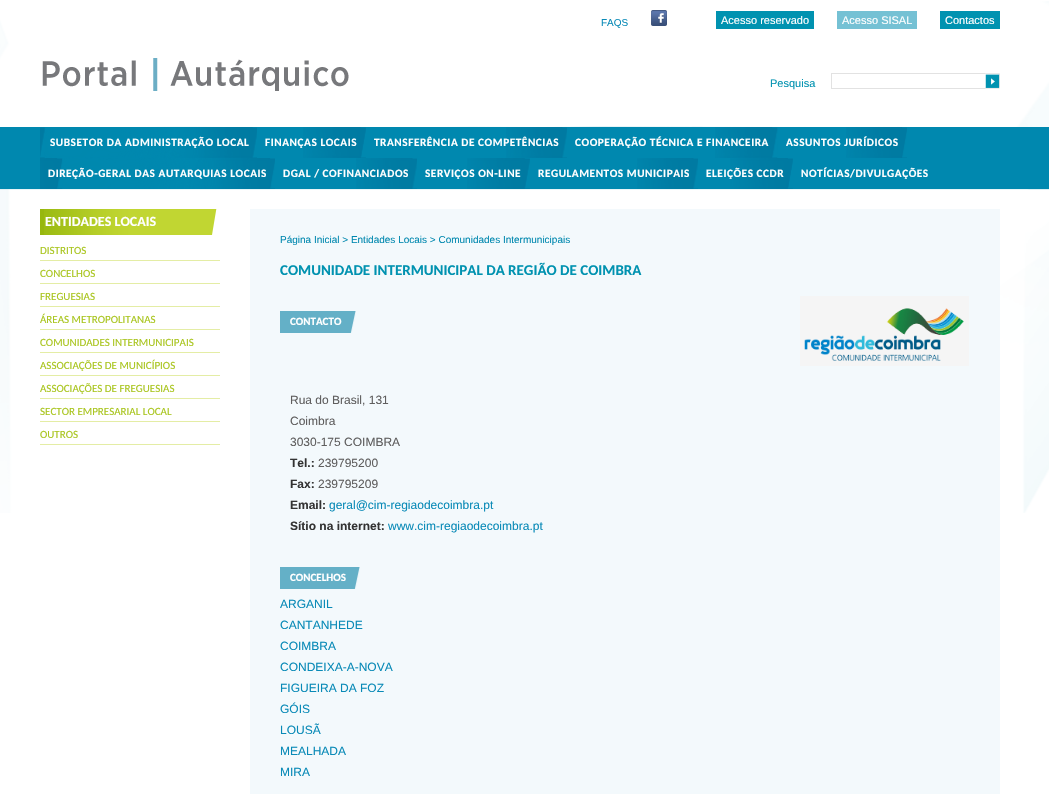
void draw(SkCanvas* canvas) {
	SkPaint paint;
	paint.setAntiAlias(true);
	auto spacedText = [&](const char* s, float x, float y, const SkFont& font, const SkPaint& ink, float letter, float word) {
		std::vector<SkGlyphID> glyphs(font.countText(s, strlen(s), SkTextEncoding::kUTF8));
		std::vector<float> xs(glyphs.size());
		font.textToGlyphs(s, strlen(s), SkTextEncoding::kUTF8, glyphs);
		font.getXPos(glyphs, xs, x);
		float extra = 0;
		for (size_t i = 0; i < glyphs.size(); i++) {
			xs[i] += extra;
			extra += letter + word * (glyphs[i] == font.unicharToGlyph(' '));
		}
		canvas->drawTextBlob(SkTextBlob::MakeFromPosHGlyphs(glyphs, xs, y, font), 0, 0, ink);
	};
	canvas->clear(0xffffffff);
	canvas->drawImageRect(SkImages::DeferredFromEncodedData(SkData::MakeFromFileName("img1.png")), SkRect::MakeXYWH(0, 1, 1049, 126), SkSamplingOptions());
	SkFont f1(fontMgr->matchFamilyStyle("Liberation Sans", SkFontStyle::Normal()), 10);
	f1.setSubpixel(true);
	paint.setColor(0xff098ab7);
	canvas->drawString("FAQS", 601, 26, f1, paint);
	canvas->drawImageRect(SkImages::DeferredFromEncodedData(SkData::MakeFromFileName("img2.png")), SkRect::MakeXYWH(651, 10, 16, 16), SkSamplingOptions());
	paint.setColor(0xff0092b0);
	canvas->drawRect(SkRect::MakeXYWH(716, 11, 98, 18), paint);
	SkFont f2(fontMgr->matchFamilyStyle("Liberation Sans", SkFontStyle::Normal()), 11);
	f2.setSubpixel(true);
	paint.setColor(0xffffffff);
	canvas->drawString("Acesso reservado", 721, 24, f2, paint);
	paint.setColor(0xff75c1d4);
	canvas->drawRect(SkRect::MakeXYWH(837, 11, 80, 18), paint);
	paint.setColor(0xffffffff);
	canvas->drawString("Acesso SISAL", 842, 24, f2, paint);
	paint.setColor(0xff0092b0);
	canvas->drawRect(SkRect::MakeXYWH(940, 11, 60, 18), paint);
	paint.setColor(0xffffffff);
	canvas->drawString("Contactos", 945, 24, f2, paint);
	canvas->drawImageRect(SkImages::DeferredFromEncodedData(SkData::MakeFromFileName("img3.png")), SkRect::MakeXYWH(42, 58, 307, 33), SkSamplingOptions());
	paint.setColor(0xff0092b0);
	canvas->drawString("Pesquisa", 770, 87, f2, paint);
	paint.setColor(0xffe2e2e2);
	canvas->drawRect(SkRect::MakeXYWH(831, 73, 154, 1), paint);
	canvas->drawRect(SkRect::MakeXYWH(831, 88, 154, 1), paint);
	canvas->drawRect(SkRect::MakeXYWH(831, 73, 1, 16), paint);
	canvas->drawImageRect(SkImages::DeferredFromEncodedData(SkData::MakeFromFileName("img4.png")), SkRect::MakeXYWH(985, 73, 15, 16), SkSamplingOptions());
	paint.setColor(0xff0088af);
	canvas->drawRect(SkRect::MakeXYWH(0, 127, 1049, 62), paint);
	canvas->drawImageRect(SkImages::DeferredFromEncodedData(SkData::MakeFromFileName("img5.png")), SkRect::MakeXYWH(40, 127, 217, 31), SkSamplingOptions());
	SkFont f3(fontMgr->matchFamilyStyle("Carlito", SkFontStyle::Bold()), 11.25);
	f3.setSubpixel(true);
	paint.setColor(0xffffffff);
	spacedText("SUBSETOR DA ADMINISTRAÇÃO LOCAL", 50, 146, f3, paint, 0.55, 0);
	canvas->drawImageRect(SkImages::DeferredFromEncodedData(SkData::MakeFromFileName("img6.png")), SkRect::MakeXYWH(303, 127, 63, 31), SkSamplingOptions());
	spacedText("FINANÇAS LOCAIS", 265, 146, f3, paint, 0.55, 0);
	canvas->drawImageRect(SkImages::DeferredFromEncodedData(SkData::MakeFromFileName("img7.png")), SkRect::MakeXYWH(506, 127, 61, 31), SkSamplingOptions());
	spacedText("TRANSFERÊNCIA DE COMPETÊNCIAS", 374, 146, f3, paint, 0.55, 0);
	canvas->drawImageRect(SkImages::DeferredFromEncodedData(SkData::MakeFromFileName("img8.png")), SkRect::MakeXYWH(715, 127, 63, 31), SkSamplingOptions());
	spacedText("COOPERAÇÃO TÉCNICA E FINANCEIRA", 575, 146, f3, paint, 0.55, 0);
	canvas->drawImageRect(SkImages::DeferredFromEncodedData(SkData::MakeFromFileName("img9.png")), SkRect::MakeXYWH(846, 127, 61, 31), SkSamplingOptions());
	spacedText("ASSUNTOS JURÍDICOS", 786, 146, f3, paint, 0.55, 0);
	canvas->drawImageRect(SkImages::DeferredFromEncodedData(SkData::MakeFromFileName("img10.png")), SkRect::MakeXYWH(40, 158, 235, 31), SkSamplingOptions());
	spacedText("DIREÇÃO-GERAL DAS AUTARQUIAS LOCAIS", 48, 177, f3, paint, 0.55, 0);
	canvas->drawImageRect(SkImages::DeferredFromEncodedData(SkData::MakeFromFileName("img11.png")), SkRect::MakeXYWH(356, 158, 61, 31), SkSamplingOptions());
	spacedText("DGAL / COFINANCIADOS", 283, 177, f3, paint, 0.55, 0);
	canvas->drawImageRect(SkImages::DeferredFromEncodedData(SkData::MakeFromFileName("img12.png")), SkRect::MakeXYWH(467, 158, 63, 31), SkSamplingOptions());
	spacedText("SERVIÇOS ON-LINE", 425, 177, f3, paint, 0.55, 0);
	canvas->drawImageRect(SkImages::DeferredFromEncodedData(SkData::MakeFromFileName("img13.png")), SkRect::MakeXYWH(637, 158, 61, 31), SkSamplingOptions());
	spacedText("REGULAMENTOS MUNICIPAIS", 538, 177, f3, paint, 0.55, 0);
	canvas->drawImageRect(SkImages::DeferredFromEncodedData(SkData::MakeFromFileName("img14.png")), SkRect::MakeXYWH(730, 158, 63, 31), SkSamplingOptions());
	spacedText("ELEIÇÕES CCDR", 706, 177, f3, paint, 0.55, 0);
	spacedText("NOTÍCIAS/DIVULGAÇÕES", 801, 177, f3, paint, 0.55, 0);
	canvas->drawImageRect(SkImages::DeferredFromEncodedData(SkData::MakeFromFileName("img15.png")), SkRect::MakeXYWH(0, 189, 1049, 324), SkSamplingOptions());
	paint.setColor(0xff97b70e);
	canvas->drawRect(SkRect::MakeXYWH(40, 209, 4, 26), paint);
	canvas->drawImageRect(SkImages::DeferredFromEncodedData(SkData::MakeFromFileName("img16.png")), SkRect::MakeXYWH(44, 209, 176, 26), SkSamplingOptions());
	SkFont f4(fontMgr->matchFamilyStyle("Carlito", SkFontStyle::Bold()), 14);
	f4.setSubpixel(true);
	paint.setColor(0xffffffff);
	canvas->drawString("ENTIDADES LOCAIS", 45, 226, f4, paint);
	paint.setColor(0xffe4eda5);
	canvas->drawRect(SkRect::MakeXYWH(40, 260, 180, 1), paint);
	SkFont f5(fontMgr->matchFamilyStyle("Carlito", SkFontStyle::Normal()), 11);
	f5.setSubpixel(true);
	paint.setColor(0xffa9c51e);
	canvas->drawString("DISTRITOS", 40, 254, f5, paint);
	paint.setColor(0xffe4eda5);
	canvas->drawRect(SkRect::MakeXYWH(40, 283, 180, 1), paint);
	paint.setColor(0xffa9c51e);
	canvas->drawString("CONCELHOS", 40, 277, f5, paint);
	paint.setColor(0xffe4eda5);
	canvas->drawRect(SkRect::MakeXYWH(40, 306, 180, 1), paint);
	paint.setColor(0xffa9c51e);
	canvas->drawString("FREGUESIAS", 40, 300, f5, paint);
	paint.setColor(0xffe4eda5);
	canvas->drawRect(SkRect::MakeXYWH(40, 329, 180, 1), paint);
	paint.setColor(0xffa9c51e);
	canvas->drawString("ÁREAS METROPOLITANAS", 40, 323, f5, paint);
	paint.setColor(0xffe4eda5);
	canvas->drawRect(SkRect::MakeXYWH(40, 352, 180, 1), paint);
	paint.setColor(0xffa9c51e);
	canvas->drawString("COMUNIDADES INTERMUNICIPAIS", 40, 346, f5, paint);
	paint.setColor(0xffe4eda5);
	canvas->drawRect(SkRect::MakeXYWH(40, 375, 180, 1), paint);
	paint.setColor(0xffa9c51e);
	canvas->drawString("ASSOCIAÇÕES DE MUNICÍPIOS", 40, 369, f5, paint);
	paint.setColor(0xffe4eda5);
	canvas->drawRect(SkRect::MakeXYWH(40, 398, 180, 1), paint);
	paint.setColor(0xffa9c51e);
	canvas->drawString("ASSOCIAÇÕES DE FREGUESIAS", 40, 392, f5, paint);
	paint.setColor(0xffe4eda5);
	canvas->drawRect(SkRect::MakeXYWH(40, 421, 180, 1), paint);
	paint.setColor(0xffa9c51e);
	canvas->drawString("SECTOR EMPRESARIAL LOCAL", 40, 415, f5, paint);
	paint.setColor(0xffe4eda5);
	canvas->drawRect(SkRect::MakeXYWH(40, 444, 180, 1), paint);
	paint.setColor(0xffa9c51e);
	canvas->drawString("OUTROS", 40, 438, f5, paint);
	paint.setColor(0xfff3f9fc);
	canvas->drawRect(SkRect::MakeXYWH(250, 209, 750, 585), paint);
	paint.setColor(0xff0088af);
	canvas->drawString("Página Inicial > Entidades Locais > Comunidades Intermunicipais", 280, 243, f1, paint);
	SkFont f6(fontMgr->matchFamilyStyle("Carlito", SkFontStyle::Bold()), 15);
	f6.setSubpixel(true);
	paint.setColor(0xff0092b0);
	canvas->drawString("COMUNIDADE INTERMUNICIPAL DA REGIÃO DE COIMBRA", 280, 275, f6, paint);
	canvas->drawImageRect(SkImages::DeferredFromEncodedData(SkData::MakeFromFileName("img17.png")), SkRect::MakeXYWH(280, 311, 76, 22), SkSamplingOptions());
	SkFont f7(fontMgr->matchFamilyStyle("Carlito", SkFontStyle::Bold()), 11);
	f7.setSubpixel(true);
	paint.setColor(0xffffffff);
	canvas->drawString("CONTACTO", 290, 325, f7, paint);
	SkFont f8(fontMgr->matchFamilyStyle("Liberation Sans", SkFontStyle::Normal()), 12);
	f8.setSubpixel(true);
	paint.setColor(0xff5f5e5e);
	canvas->drawString("Rua do Brasil, 131", 290, 404, f8, paint);
	canvas->drawString("Coimbra", 290, 425, f8, paint);
	canvas->drawString("3030-175 COIMBRA", 290, 446, f8, paint);
	SkFont f9(fontMgr->matchFamilyStyle("Liberation Sans", SkFontStyle::Bold()), 12);
	f9.setSubpixel(true);
	paint.setColor(0xff333333);
	canvas->drawString("Tel.:", 290, 467, f9, paint);
	paint.setColor(0xff5f5e5e);
	canvas->drawString("239795200", 318, 467, f8, paint);
	paint.setColor(0xff333333);
	canvas->drawString("Fax:", 290, 488, f9, paint);
	paint.setColor(0xff5f5e5e);
	canvas->drawString("239795209", 318, 488, f8, paint);
	paint.setColor(0xff333333);
	canvas->drawString("Email:", 290, 509, f9, paint);
	paint.setColor(0xff098ab7);
	canvas->drawString("geral@cim-regiaodecoimbra.pt", 329, 509, f8, paint);
	paint.setColor(0xff333333);
	canvas->drawString("Sítio na internet:", 290, 530, f9, paint);
	paint.setColor(0xff098ab7);
	canvas->drawString("www.cim-regiaodecoimbra.pt", 388, 530, f8, paint);
	canvas->drawImageRect(SkImages::DeferredFromEncodedData(SkData::MakeFromFileName("img18.png")), SkRect::MakeXYWH(800, 296, 169, 70), SkSamplingOptions());
	canvas->drawImageRect(SkImages::DeferredFromEncodedData(SkData::MakeFromFileName("img19.png")), SkRect::MakeXYWH(280, 567, 80, 22), SkSamplingOptions());
	paint.setColor(0xffffffff);
	canvas->drawString("CONCELHOS", 290, 581, f7, paint);
	paint.setColor(0xff098ab7);
	canvas->drawString("ARGANIL", 280, 608, f8, paint);
	canvas->drawString("CANTANHEDE", 280, 629, f8, paint);
	canvas->drawString("COIMBRA", 280, 650, f8, paint);
	canvas->drawString("CONDEIXA-A-NOVA", 280, 671, f8, paint);
	canvas->drawString("FIGUEIRA DA FOZ", 280, 692, f8, paint);
	canvas->drawString("GÓIS", 280, 713, f8, paint);
	canvas->drawString("LOUSÃ", 280, 734, f8, paint);
	canvas->drawString("MEALHADA", 280, 755, f8, paint);
	canvas->drawString("MIRA", 280, 776, f8, paint);
}
